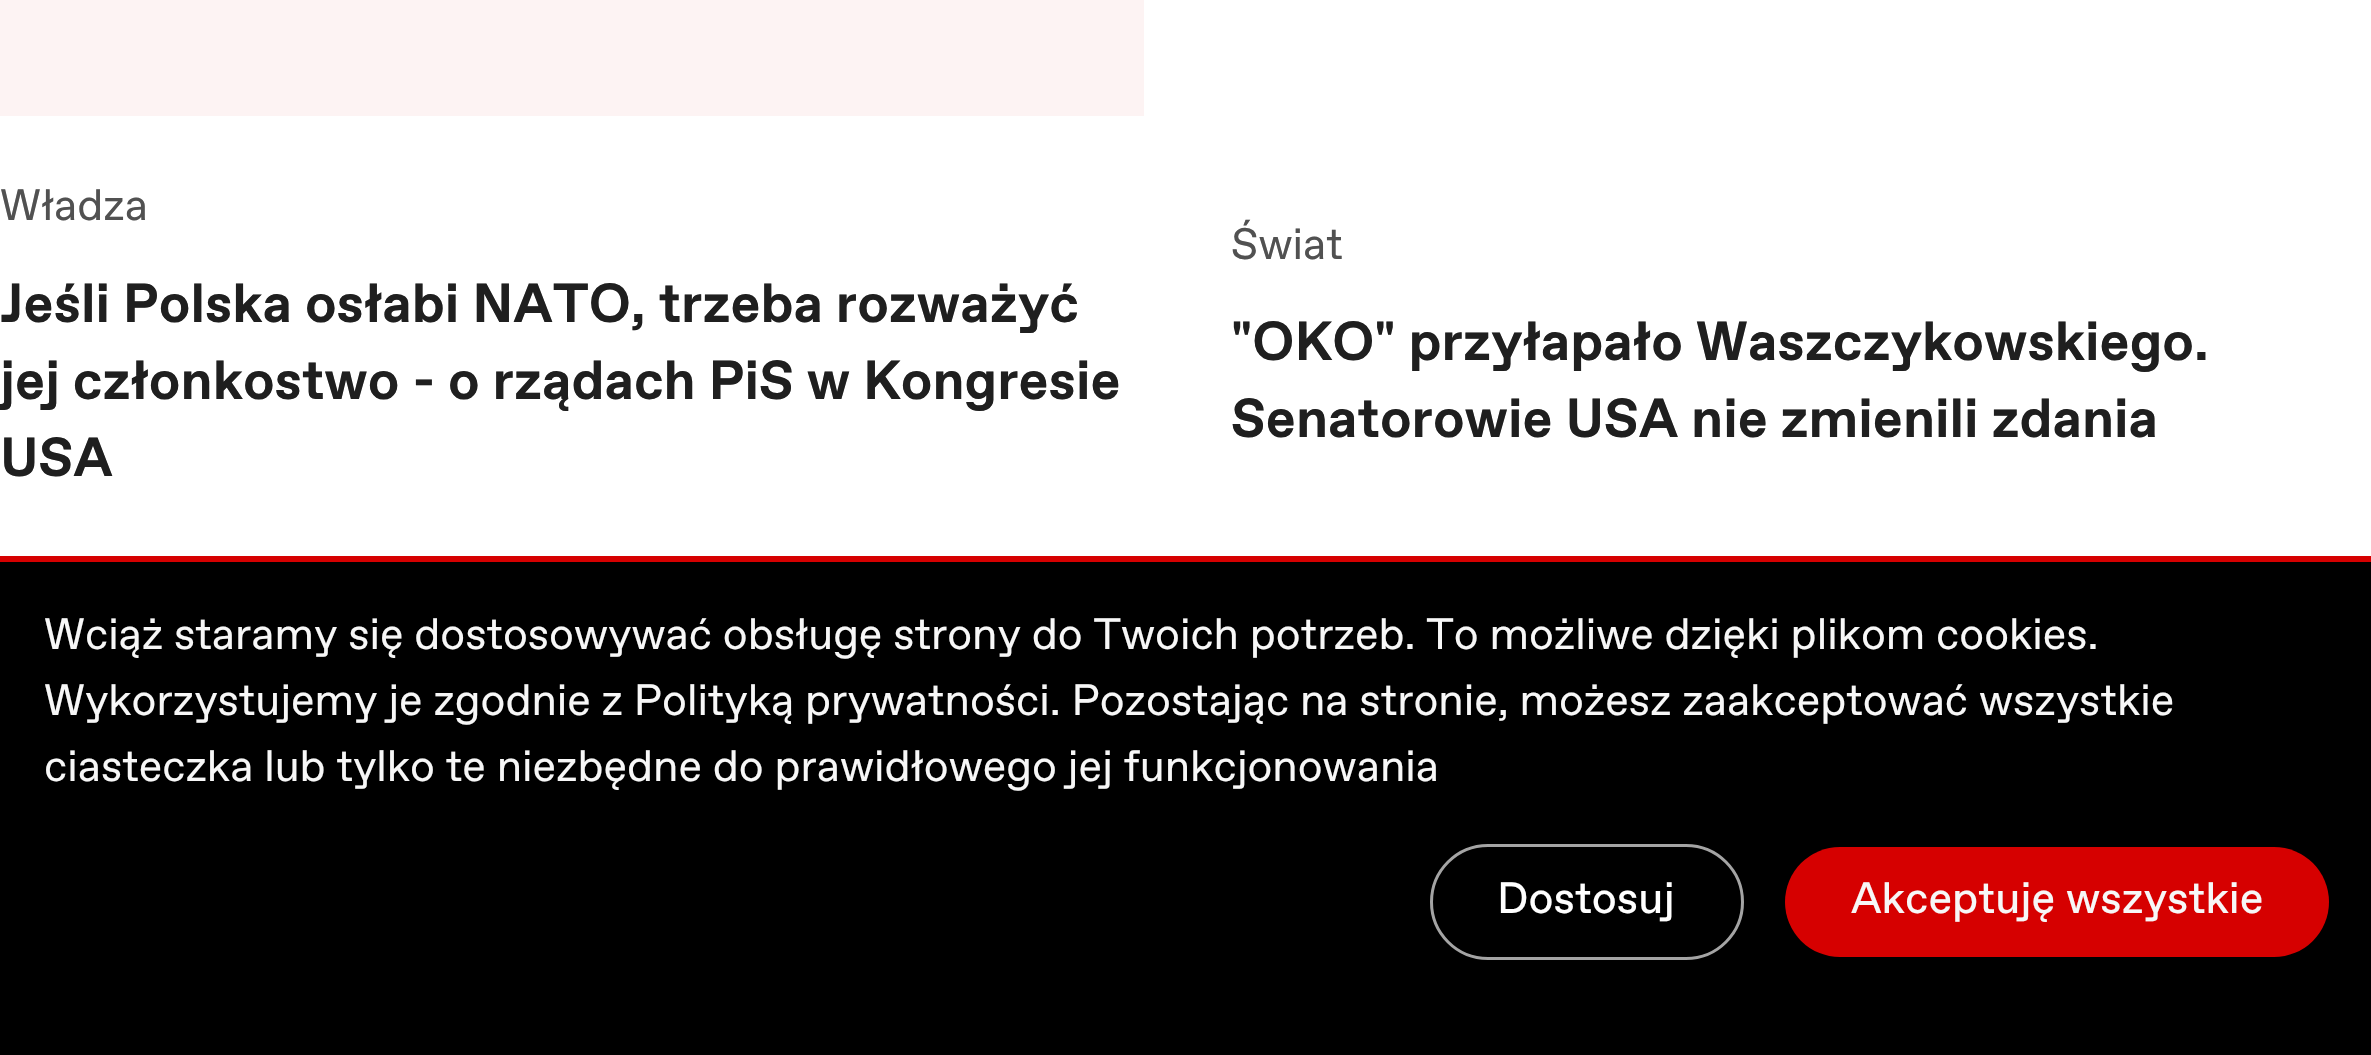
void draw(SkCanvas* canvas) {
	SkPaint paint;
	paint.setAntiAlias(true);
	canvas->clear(0xffffffff);
	paint.setColor(0xfffdf3f3);
	canvas->drawRect(SkRect::MakeXYWH(0, 0, 1144, 116), paint);
	SkFont f1(fontMgr->matchFamilyStyle("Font", SkFontStyle(300, SkFontStyle::kNormal_Width, SkFontStyle::kUpright_Slant)), 44);
	f1.setSubpixel(true);
	paint.setColor(0xff515151);
	canvas->drawString("Władza", 0, 220, f1, paint);
	SkFont f2(fontMgr->matchFamilyStyle("Font", SkFontStyle::Bold()), 55);
	f2.setSubpixel(true);
	paint.setColor(0xff1f1f1f);
	canvas->drawString("Jeśli Polska osłabi NATO, trzeba rozważyć", 0, 322, f2, paint);
	canvas->drawString("jej członkostwo - o rządach PiS w Kongresie", 0, 399, f2, paint);
	canvas->drawString("USA", 0, 476, f2, paint);
	paint.setColor(0xff515151);
	canvas->drawString("Świat", 1231, 259, f1, paint);
	paint.setColor(0xff1f1f1f);
	canvas->drawString("\"OKO\" przyłapało Waszczykowskiego.", 1231, 360, f2, paint);
	canvas->drawString("Senatorowie USA nie zmienili zdania", 1231, 437, f2, paint);
	paint.setColor(0xff000000);
	canvas->drawRect(SkRect::MakeXYWH(0, 562, 2371, 493), paint);
	paint.setColor(0xffd60000);
	canvas->drawRect(SkRect::MakeXYWH(0, 556, 2371, 6), paint);
	paint.setColor(0xfff7f7f7);
	canvas->drawString("Wciąż staramy się dostosowywać obsługę strony do Twoich potrzeb. To możliwe dzięki plikom cookies.", 44, 649, f1, paint);
	canvas->drawString("Wykorzystujemy je zgodnie z Polityką prywatności. Pozostając na stronie, możesz zaakceptować wszystkie", 44, 715, f1, paint);
	canvas->drawString("ciasteczka lub tylko te niezbędne do prawidłowego jej funkcjonowania", 44, 781, f1, paint);
	paint.setStroke(true);
	paint.setStrokeWidth(3);
	paint.setColor(0xffa4a4a4);
	canvas->drawRoundRect(SkRect::MakeXYWH(1431.5, 845.5, 311, 113), 56.5, 56.5, paint);
	SkFont f3(fontMgr->matchFamilyStyle("Font", SkFontStyle::Normal()), 44);
	f3.setSubpixel(true);
	paint.setStroke(false);
	paint.setColor(0xffffffff);
	canvas->drawString("Dostosuj", 1497, 913, f3, paint);
	paint.setColor(0xffd60000);
	canvas->drawRoundRect(SkRect::MakeXYWH(1785, 847, 544, 110), 55, 55, paint);
	paint.setColor(0xfff7f7f7);
	canvas->drawString("Akceptuję wszystkie", 1851, 913, f3, paint);
}
